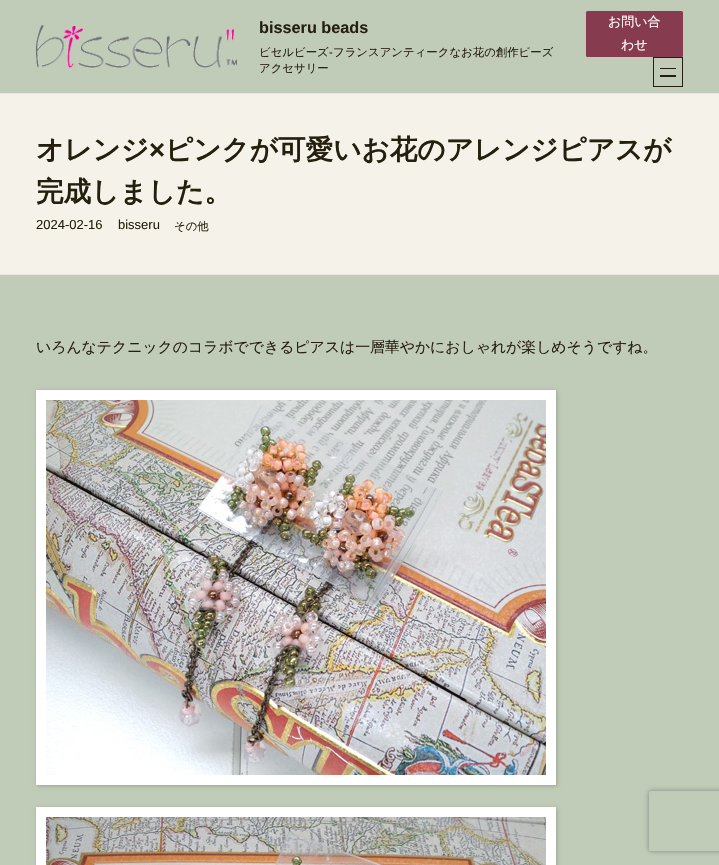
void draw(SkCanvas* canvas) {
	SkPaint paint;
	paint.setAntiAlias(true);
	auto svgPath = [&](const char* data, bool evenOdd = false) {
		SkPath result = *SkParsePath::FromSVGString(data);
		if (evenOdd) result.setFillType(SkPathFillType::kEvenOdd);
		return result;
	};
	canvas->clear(0xffc0ccb7);
	canvas->drawImageRect(SkImages::DeferredFromEncodedData(SkData::MakeFromFileName("img1.png")), SkRect::MakeXYWH(36, 25, 201, 43), SkSamplingOptions());
	SkFont f1(fontMgr->matchFamilyStyle("Liberation Sans", SkFontStyle::Bold()), 16.25);
	f1.setSubpixel(true);
	paint.setColor(0xff251f0f);
	canvas->drawString("bisseru beads", 259, 33, f1, paint);
	SkFont f2(fontMgr->matchFamilyStyle("WenQuanYi Zen Hei", SkFontStyle(500, SkFontStyle::kNormal_Width, SkFontStyle::kUpright_Slant)), 11.4);
	f2.setSubpixel(true);
	canvas->drawString("ビセルビーズ", 259, 56, f2, paint);
	SkFont f3(fontMgr->matchFamilyStyle("Liberation Sans", SkFontStyle::Normal()), 11.4);
	f3.setSubpixel(true);
	canvas->drawString("-", 329, 56, f3, paint);
	canvas->drawString("フランスアンティークなお花の創作ビーズ", 333, 56, f2, paint);
	canvas->drawString("アクセサリー", 259, 72, f2, paint);
	paint.setColor(0xff873b4f);
	canvas->drawRoundRect(SkRect::MakeXYWH(586, 11, 97, 46), 1.5, 1.5, paint);
	SkFont f4(fontMgr->matchFamilyStyle("WenQuanYi Zen Hei", SkFontStyle(500, SkFontStyle::kNormal_Width, SkFontStyle::kUpright_Slant)), 13);
	f4.setSubpixel(true);
	paint.setColor(0xffffffff);
	canvas->drawString("お問い合", 608, 26, f4, paint);
	canvas->drawString("わせ", 621, 49, f4, paint);
	paint.setStroke(true);
	paint.setStrokeWidth(1);
	paint.setColor(0xff251f0f);
	canvas->drawRect(SkRect::MakeXYWH(653.5, 57.5, 29, 29), paint);
	paint.setStroke(false);
	canvas->drawRect(SkRect::MakeXYWH(660, 68, 16, 1), paint);
	canvas->drawRect(SkRect::MakeXYWH(660, 75, 16, 2), paint);
	paint.setColor(0xffe7e5d9);
	canvas->drawRect(SkRect::MakeXYWH(0, 93, 719, 1), paint);
	paint.setColor(0xfff5f3e9);
	canvas->drawRect(SkRect::MakeXYWH(0, 94, 719, 180), paint);
	SkFont f5(fontMgr->matchFamilyStyle("WenQuanYi Zen Hei", SkFontStyle::Bold()), 27.6);
	f5.setSubpixel(true);
	paint.setColor(0xff251f0f);
	canvas->drawString("オレンジ", 36, 159, f5, paint);
	SkFont f6(fontMgr->matchFamilyStyle("Liberation Sans", SkFontStyle::Bold()), 27.6);
	f6.setSubpixel(true);
	canvas->drawString("×", 149, 159, f6, paint);
	canvas->drawString("ピンクが可愛いお花のアレンジピアスが", 165, 159, f5, paint);
	canvas->drawString("完成しました。", 36, 201, f5, paint);
	SkFont f7(fontMgr->matchFamilyStyle("Liberation Sans", SkFontStyle::Normal()), 13);
	f7.setSubpixel(true);
	canvas->drawString("2024-02-16", 36, 229, f7, paint);
	canvas->drawString("bisseru", 118, 229, f7, paint);
	canvas->drawString("その他", 174, 230, f2, paint);
	paint.setColor(0xffe7e5d9);
	canvas->drawRect(SkRect::MakeXYWH(0, 274, 719, 1), paint);
	SkFont f8(fontMgr->matchFamilyStyle("WenQuanYi Zen Hei", SkFontStyle(500, SkFontStyle::kNormal_Width, SkFontStyle::kUpright_Slant)), 14.85);
	f8.setSubpixel(true);
	paint.setColor(0xff251f0f);
	canvas->drawString("いろんなテクニックのコラボでできるピアスは一層華やかにおしゃれが楽しめそうですね。", 36, 352, f8, paint);
	paint.setColor(0x33000000);
	paint.setMaskFilter(SkMaskFilter::MakeBlur(kNormal_SkBlurStyle, 2));
	canvas->drawRect(SkRect::MakeXYWH(37, 391, 520, 395), paint);
	paint.setMaskFilter(nullptr);
	paint.setColor(0xffffffff);
	canvas->drawRect(SkRect::MakeXYWH(36, 390, 520, 395), paint);
	canvas->drawImageRect(SkImages::DeferredFromEncodedData(SkData::MakeFromFileName("img2.png")), SkRect::MakeXYWH(46, 400, 500, 375), SkSamplingOptions());
	paint.setColor(0x33000000);
	paint.setMaskFilter(SkMaskFilter::MakeBlur(kNormal_SkBlurStyle, 2));
	canvas->drawRect(SkRect::MakeXYWH(37, 808, 520, 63), paint);
	paint.setMaskFilter(nullptr);
	paint.setColor(0xffffffff);
	canvas->drawRect(SkRect::MakeXYWH(36, 807, 520, 58), paint);
	canvas->drawImageRect(SkImages::DeferredFromEncodedData(SkData::MakeFromFileName("img3.png")), SkRect::MakeXYWH(46, 817, 500, 48), SkSamplingOptions());
	canvas->save();
	canvas->clipPath(svgPath("M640 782H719V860H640ZM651 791H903C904 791 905 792 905 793V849C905 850 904 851 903 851H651C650 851 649 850 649 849V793C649 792 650 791 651 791Z", true), true);
	paint.setColor(0xff808080);
	paint.setMaskFilter(SkMaskFilter::MakeBlur(kNormal_SkBlurStyle, 2.5));
	canvas->drawRoundRect(SkRect::MakeXYWH(649, 791, 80, 60), 2, 2, paint);
	paint.setMaskFilter(nullptr);
	canvas->restore();
}
